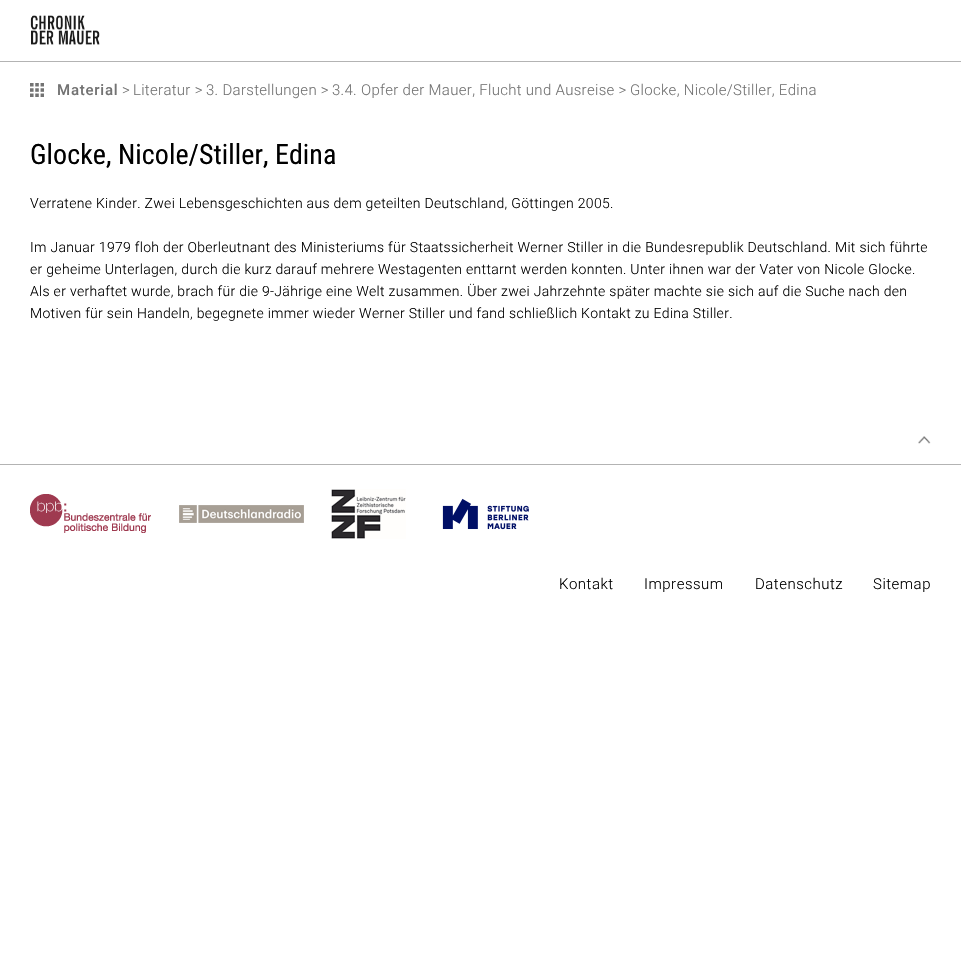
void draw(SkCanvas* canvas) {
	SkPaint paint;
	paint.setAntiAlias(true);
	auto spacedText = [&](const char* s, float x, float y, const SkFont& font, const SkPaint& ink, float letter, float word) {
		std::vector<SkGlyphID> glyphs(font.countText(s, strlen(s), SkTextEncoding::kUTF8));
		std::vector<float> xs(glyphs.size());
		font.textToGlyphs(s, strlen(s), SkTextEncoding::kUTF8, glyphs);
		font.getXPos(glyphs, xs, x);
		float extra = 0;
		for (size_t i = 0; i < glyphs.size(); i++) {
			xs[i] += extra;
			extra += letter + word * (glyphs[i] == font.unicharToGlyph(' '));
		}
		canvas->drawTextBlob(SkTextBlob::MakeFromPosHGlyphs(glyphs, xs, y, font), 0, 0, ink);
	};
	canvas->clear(0xffffffff);
	canvas->drawImageRect(SkImages::DeferredFromEncodedData(SkData::MakeFromFileName("img1.png")), SkRect::MakeXYWH(30, 15, 70, 30), SkSamplingOptions());
	paint.setColor(0xffb3b3b3);
	canvas->drawRect(SkRect::MakeXYWH(0, 61, 961, 1), paint);
	canvas->drawImageRect(SkImages::DeferredFromEncodedData(SkData::MakeFromFileName("img2.png")), SkRect::MakeXYWH(30, 83, 14, 14), SkSamplingOptions());
	SkFont f1(fontMgr->matchFamilyStyle("Roboto", SkFontStyle(500, SkFontStyle::kNormal_Width, SkFontStyle::kUpright_Slant)), 15);
	f1.setSubpixel(true);
	paint.setColor(0xff737373);
	spacedText("Material", 57, 95, f1, paint, 0.75, 0);
	SkFont f2(fontMgr->matchFamilyStyle("Roboto", SkFontStyle(300, SkFontStyle::kNormal_Width, SkFontStyle::kUpright_Slant)), 15);
	f2.setSubpixel(true);
	spacedText(">", 122, 95, f2, paint, 0.3, 0);
	spacedText("Literatur >", 133, 95, f2, paint, 0.3, 0);
	spacedText("3. Darstellungen >", 206, 95, f2, paint, 0.3, 0);
	spacedText("3.4. Opfer der Mauer, Flucht und Ausreise >", 332, 95, f2, paint, 0.3, 0);
	spacedText("Glocke, Nicole/Stiller, Edina", 630, 95, f2, paint, 0.3, 0);
	SkFont f3(fontMgr->matchFamilyStyle("Roboto Condensed", SkFontStyle::Normal()), 28);
	f3.setSubpixel(true);
	paint.setColor(0xff000000);
	spacedText("Glocke, Nicole/Stiller, Edina", 30, 164, f3, paint, 0.05, 0);
	SkFont f4(fontMgr->matchFamilyStyle("Roboto", SkFontStyle(300, SkFontStyle::kNormal_Width, SkFontStyle::kUpright_Slant)), 14);
	f4.setSubpixel(true);
	spacedText("Verratene Kinder. Zwei Lebensgeschichten aus dem geteilten Deutschland, Göttingen 2005.", 30, 208, f4, paint, 0.31, 0);
	spacedText("Im Januar 1979 floh der Oberleutnant des Ministeriums für Staatssicherheit Werner Stiller in die Bundesrepublik Deutschland. Mit sich führte", 30, 252, f4, paint, 0.31, 0);
	spacedText("er geheime Unterlagen, durch die kurz darauf mehrere Westagenten enttarnt werden konnten. Unter ihnen war der Vater von Nicole Glocke.", 30, 274, f4, paint, 0.31, 0);
	spacedText("Als er verhaftet wurde, brach für die 9-Jährige eine Welt zusammen. Über zwei Jahrzehnte später machte sie sich auf die Suche nach den", 30, 296, f4, paint, 0.31, 0);
	spacedText("Motiven für sein Handeln, begegnete immer wieder Werner Stiller und fand schließlich Kontakt zu Edina Stiller.", 30, 318, f4, paint, 0.31, 0);
	canvas->drawImageRect(SkImages::DeferredFromEncodedData(SkData::MakeFromFileName("img3.png")), SkRect::MakeXYWH(918, 436, 13, 8), SkSamplingOptions());
	paint.setColor(0xffb3b3b3);
	canvas->drawRect(SkRect::MakeXYWH(0, 464, 961, 1), paint);
	canvas->drawImageRect(SkImages::DeferredFromEncodedData(SkData::MakeFromFileName("img4.png")), SkRect::MakeXYWH(30, 494, 121, 39), SkSamplingOptions());
	canvas->drawImageRect(SkImages::DeferredFromEncodedData(SkData::MakeFromFileName("img5.png")), SkRect::MakeXYWH(179, 505, 125, 18), SkSamplingOptions());
	canvas->drawImageRect(SkImages::DeferredFromEncodedData(SkData::MakeFromFileName("img6.png")), SkRect::MakeXYWH(331, 489, 75, 50), SkSamplingOptions());
	canvas->drawImageRect(SkImages::DeferredFromEncodedData(SkData::MakeFromFileName("img7.png")), SkRect::MakeXYWH(442, 498, 87, 32), SkSamplingOptions());
	paint.setColor(0xff000000);
	spacedText("Kontakt", 559, 589, f2, paint, 0.5, 0);
	spacedText("Impressum", 644, 589, f2, paint, 0.5, 0);
	spacedText("Datenschutz", 755, 589, f2, paint, 0.5, 0);
	spacedText("Sitemap", 873, 589, f2, paint, 0.5, 0);
}
